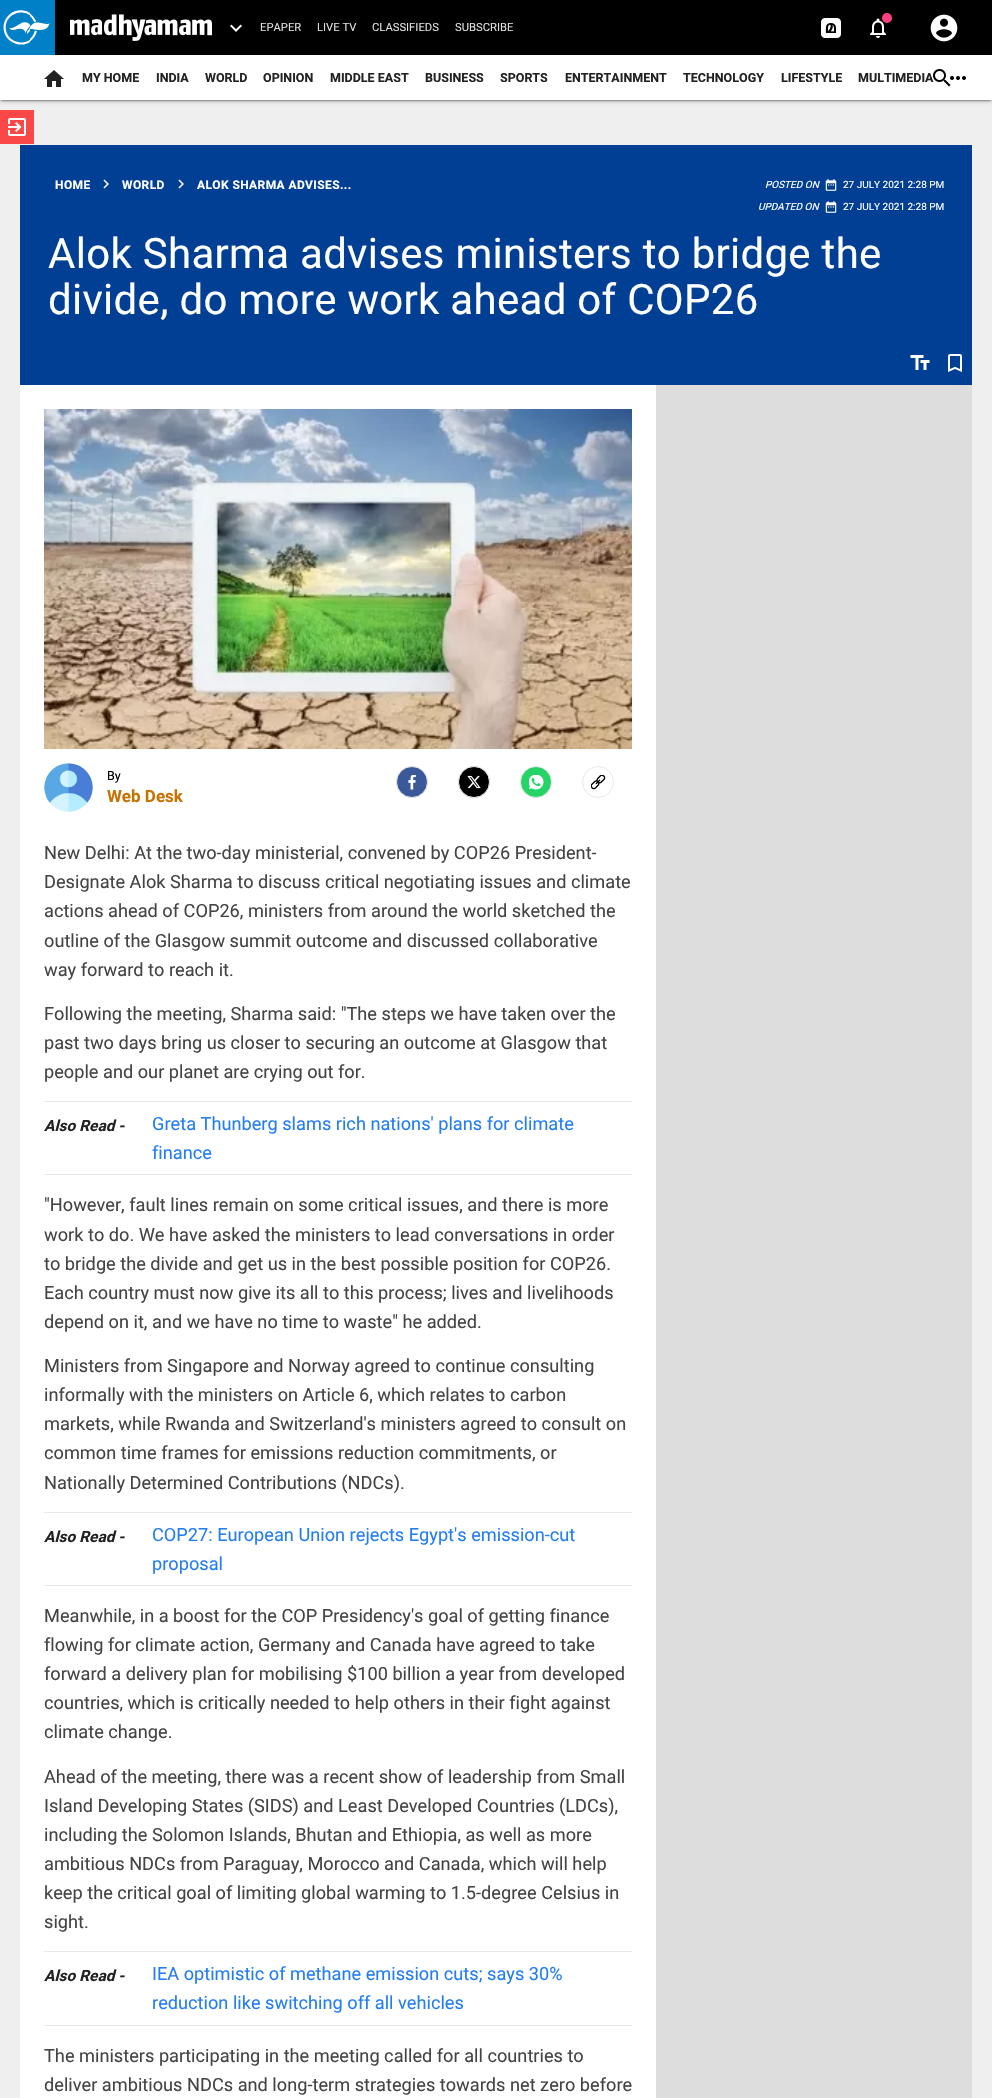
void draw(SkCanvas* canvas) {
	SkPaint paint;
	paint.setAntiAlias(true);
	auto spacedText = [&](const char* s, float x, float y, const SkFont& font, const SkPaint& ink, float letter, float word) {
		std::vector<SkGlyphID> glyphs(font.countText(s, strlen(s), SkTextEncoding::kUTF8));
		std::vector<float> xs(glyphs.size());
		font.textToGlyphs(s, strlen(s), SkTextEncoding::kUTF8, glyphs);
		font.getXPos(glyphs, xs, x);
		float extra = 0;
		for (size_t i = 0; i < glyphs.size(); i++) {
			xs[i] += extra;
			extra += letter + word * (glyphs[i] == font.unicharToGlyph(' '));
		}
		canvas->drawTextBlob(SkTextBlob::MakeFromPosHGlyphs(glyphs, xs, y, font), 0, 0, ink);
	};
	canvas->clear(0xffefefef);
	paint.setColor(0x1f000000);
	paint.setMaskFilter(SkMaskFilter::MakeBlur(kNormal_SkBlurStyle, 2.5));
	canvas->drawRect(SkRect::MakeXYWH(0, 1, 992, 100), paint);
	paint.setMaskFilter(nullptr);
	paint.setColor(0x33000000);
	paint.setMaskFilter(SkMaskFilter::MakeBlur(kNormal_SkBlurStyle, 0.5));
	canvas->drawRect(SkRect::MakeXYWH(2, 5, 988, 96), paint);
	paint.setMaskFilter(nullptr);
	paint.setColor(0x24000000);
	paint.setMaskFilter(SkMaskFilter::MakeBlur(kNormal_SkBlurStyle, 1));
	canvas->drawRect(SkRect::MakeXYWH(0, 2, 992, 100), paint);
	paint.setMaskFilter(nullptr);
	canvas->drawImageRect(SkImages::DeferredFromEncodedData(SkData::MakeFromFileName("img1.png")), SkRect::MakeXYWH(0, 0, 55, 55), SkSamplingOptions());
	paint.setColor(0xff000000);
	canvas->drawRect(SkRect::MakeXYWH(55, 0, 937, 55), paint);
	canvas->drawImageRect(SkImages::DeferredFromEncodedData(SkData::MakeFromFileName("img2.png")), SkRect::MakeXYWH(70, 14, 142, 27), SkSamplingOptions());
	canvas->drawImageRect(SkImages::DeferredFromEncodedData(SkData::MakeFromFileName("img3.png")), SkRect::MakeXYWH(230, 24, 12, 8), SkSamplingOptions());
	SkFont f1(fontMgr->matchFamilyStyle("Roboto", SkFontStyle::Normal()), 11.25);
	f1.setSubpixel(true);
	paint.setColor(0xffdedede);
	canvas->drawString("EPAPER", 260, 31, f1, paint);
	canvas->drawString("LIVE TV", 317, 31, f1, paint);
	canvas->drawString("CLASSIFIEDS", 372, 31, f1, paint);
	canvas->drawString("SUBSCRIBE", 455, 31, f1, paint);
	canvas->drawImageRect(SkImages::DeferredFromEncodedData(SkData::MakeFromFileName("img4.png")), SkRect::MakeXYWH(821, 18, 20, 20), SkSamplingOptions());
	canvas->drawImageRect(SkImages::DeferredFromEncodedData(SkData::MakeFromFileName("img5.png")), SkRect::MakeXYWH(870, 18, 16, 20), SkSamplingOptions());
	paint.setColor(0xffff4081);
	canvas->drawCircle(887, 18, 5, paint);
	canvas->drawImageRect(SkImages::DeferredFromEncodedData(SkData::MakeFromFileName("img6.png")), SkRect::MakeXYWH(930, 14, 28, 28), SkSamplingOptions());
	paint.setColor(0xffffffff);
	canvas->drawRect(SkRect::MakeXYWH(0, 55, 992, 45), paint);
	canvas->drawImageRect(SkImages::DeferredFromEncodedData(SkData::MakeFromFileName("img7.png")), SkRect::MakeXYWH(44, 70, 20, 17), SkSamplingOptions());
	SkFont f2(fontMgr->matchFamilyStyle("Roboto", SkFontStyle::Bold()), 12.5);
	f2.setSubpixel(true);
	paint.setColor(0xff222222);
	canvas->drawString("MY HOME", 82, 82, f2, paint);
	canvas->drawString("INDIA", 156, 82, f2, paint);
	canvas->drawString("WORLD", 205, 82, f2, paint);
	canvas->drawString("OPINION", 263, 82, f2, paint);
	canvas->drawString("MIDDLE EAST", 330, 82, f2, paint);
	canvas->drawString("BUSINESS", 425, 82, f2, paint);
	canvas->drawString("SPORTS", 500, 82, f2, paint);
	canvas->drawString("ENTERTAINMENT", 565, 82, f2, paint);
	canvas->drawString("TECHNOLOGY", 683, 82, f2, paint);
	canvas->drawString("LIFESTYLE", 781, 82, f2, paint);
	canvas->drawString("MULTIMEDIA", 858, 82, f2, paint);
	canvas->drawImageRect(SkImages::DeferredFromEncodedData(SkData::MakeFromFileName("img9.png")), SkRect::MakeXYWH(950, 76, 16, 4), SkSamplingOptions());
	canvas->drawImageRect(SkImages::DeferredFromEncodedData(SkData::MakeFromFileName("img8.png")), SkRect::MakeXYWH(933, 69, 18, 18), SkSamplingOptions());
	paint.setColor(0xfffa4848);
	canvas->drawRect(SkRect::MakeXYWH(0, 110, 34, 34), paint);
	canvas->drawImageRect(SkImages::DeferredFromEncodedData(SkData::MakeFromFileName("img10.png")), SkRect::MakeXYWH(8, 118, 18, 18), SkSamplingOptions());
	paint.setColor(0xff003f93);
	canvas->drawRect(SkRect::MakeXYWH(20, 145, 952, 240), paint);
	SkFont f3(fontMgr->matchFamilyStyle("Roboto", SkFontStyle::Bold()), 12);
	f3.setSubpixel(true);
	paint.setColor(0xffffffff);
	spacedText("HOME", 55, 189, f3, paint, 0.4, 0);
	canvas->drawImageRect(SkImages::DeferredFromEncodedData(SkData::MakeFromFileName("img11.png")), SkRect::MakeXYWH(103, 179, 6, 10), SkSamplingOptions());
	spacedText("WORLD", 122, 189, f3, paint, 0.4, 0);
	canvas->drawImageRect(SkImages::DeferredFromEncodedData(SkData::MakeFromFileName("img11.png")), SkRect::MakeXYWH(178, 179, 6, 10), SkSamplingOptions());
	spacedText("ALOK SHARMA ADVISES...", 197, 189, f3, paint, 0.4, 0);
	SkFont f4(fontMgr->matchFamilyStyle("Roboto", SkFontStyle::Italic()), 10);
	f4.setSubpixel(true);
	canvas->drawString("POSTED ON", 765, 188, f4, paint);
	canvas->drawImageRect(SkImages::DeferredFromEncodedData(SkData::MakeFromFileName("img12.png")), SkRect::MakeXYWH(825, 179, 12, 12), SkSamplingOptions());
	SkFont f5(fontMgr->matchFamilyStyle("Roboto", SkFontStyle::Normal()), 10);
	f5.setSubpixel(true);
	canvas->drawString("27 JULY 2021 2:28 PM", 843, 188, f5, paint);
	canvas->drawString("UPDATED ON", 758, 210, f4, paint);
	canvas->drawImageRect(SkImages::DeferredFromEncodedData(SkData::MakeFromFileName("img12.png")), SkRect::MakeXYWH(825, 201, 12, 12), SkSamplingOptions());
	canvas->drawString("27 JULY 2021 2:28 PM", 843, 210, f5, paint);
	SkFont f6(fontMgr->matchFamilyStyle("Roboto", SkFontStyle::Normal()), 42);
	f6.setSubpixel(true);
	spacedText("Alok Sharma advises ministers to bridge the", 48, 268, f6, paint, 0.3, 0);
	spacedText("divide, do more work ahead of COP26", 48, 314, f6, paint, 0.3, 0);
	canvas->drawImageRect(SkImages::DeferredFromEncodedData(SkData::MakeFromFileName("img13.png")), SkRect::MakeXYWH(910, 355, 20, 15), SkSamplingOptions());
	canvas->drawImageRect(SkImages::DeferredFromEncodedData(SkData::MakeFromFileName("img14.png")), SkRect::MakeXYWH(948, 354, 14, 18), SkSamplingOptions());
	canvas->drawRect(SkRect::MakeXYWH(20, 385, 636, 1713), paint);
	canvas->drawImageRect(SkImages::DeferredFromEncodedData(SkData::MakeFromFileName("img15.png")), SkRect::MakeXYWH(44, 409, 588, 340), SkSamplingOptions());
	canvas->drawImageRect(SkImages::DeferredFromEncodedData(SkData::MakeFromFileName("img16.png")), SkRect::MakeXYWH(44, 763, 49, 49), SkSamplingOptions());
	SkFont f7(fontMgr->matchFamilyStyle("Roboto", SkFontStyle::Normal()), 12.5);
	f7.setSubpixel(true);
	paint.setColor(0xff000000);
	canvas->drawString("By", 107, 780, f7, paint);
	SkFont f8(fontMgr->matchFamilyStyle("Roboto", SkFontStyle::Bold()), 17);
	f8.setSubpixel(true);
	paint.setColor(0xffc67300);
	canvas->drawString("Web Desk", 107, 802, f8, paint);
	paint.setColor(0xff3b5998);
	canvas->drawCircle(412, 782, 15.5, paint);
	paint.setStroke(true);
	paint.setStrokeWidth(1);
	paint.setColor(0xffe7e8e9);
	canvas->drawCircle(412, 782, 15.5, paint);
	canvas->drawImageRect(SkImages::DeferredFromEncodedData(SkData::MakeFromFileName("img17.png")), SkRect::MakeXYWH(408, 775, 8, 15), SkSamplingOptions());
	paint.setStroke(false);
	paint.setColor(0xff000000);
	canvas->drawCircle(474, 782, 15.5, paint);
	paint.setStroke(true);
	paint.setColor(0xffe7e8e9);
	canvas->drawCircle(474, 782, 15.5, paint);
	canvas->drawImageRect(SkImages::DeferredFromEncodedData(SkData::MakeFromFileName("img18.png")), SkRect::MakeXYWH(467, 775, 14, 14), SkSamplingOptions());
	paint.setStroke(false);
	paint.setColor(0xff25d366);
	canvas->drawCircle(536, 782, 15.5, paint);
	paint.setStroke(true);
	paint.setColor(0xffe7e8e9);
	canvas->drawCircle(536, 782, 15.5, paint);
	canvas->drawImageRect(SkImages::DeferredFromEncodedData(SkData::MakeFromFileName("img19.png")), SkRect::MakeXYWH(529, 775, 15, 15), SkSamplingOptions());
	canvas->drawCircle(598, 782, 15.5, paint);
	canvas->drawImageRect(SkImages::DeferredFromEncodedData(SkData::MakeFromFileName("img20.png")), SkRect::MakeXYWH(591, 775, 15, 15), SkSamplingOptions());
	SkFont f9(fontMgr->matchFamilyStyle("Roboto", SkFontStyle::Normal()), 18.2);
	f9.setSubpixel(true);
	paint.setStroke(false);
	paint.setColor(0xff444444);
	canvas->drawString("New Delhi: At the two-day ministerial, convened by COP26 President-", 44, 859, f9, paint);
	canvas->drawString("Designate Alok Sharma to discuss critical negotiating issues and climate", 44, 888, f9, paint);
	canvas->drawString("actions ahead of COP26, ministers from around the world sketched the", 44, 917, f9, paint);
	canvas->drawString("outline of the Glasgow summit outcome and discussed collaborative", 44, 947, f9, paint);
	canvas->drawString("way forward to reach it.", 44, 976, f9, paint);
	canvas->drawString("Following the meeting, Sharma said: \"The steps we have taken over the", 44, 1020, f9, paint);
	canvas->drawString("past two days bring us closer to securing an outcome at Glasgow that", 44, 1049, f9, paint);
	canvas->drawString("people and our planet are crying out for.", 44, 1078, f9, paint);
	paint.setColor(0xffe7e8e9);
	canvas->drawRect(SkRect::MakeXYWH(44, 1101, 588, 1), paint);
	canvas->drawRect(SkRect::MakeXYWH(44, 1174, 588, 1), paint);
	SkFont f10(fontMgr->matchFamilyStyle("Roboto", SkFontStyle::BoldItalic()), 15.5);
	f10.setSubpixel(true);
	paint.setColor(0xff222222);
	canvas->drawString("Also Read -", 44, 1131, f10, paint);
	paint.setColor(0xff237df3);
	canvas->drawString("Greta Thunberg slams rich nations' plans for climate", 152, 1130, f9, paint);
	canvas->drawString("finance", 152, 1159, f9, paint);
	paint.setColor(0xff444444);
	canvas->drawString("\"However, fault lines remain on some critical issues, and there is more", 44, 1211, f9, paint);
	canvas->drawString("work to do. We have asked the ministers to lead conversations in order", 44, 1241, f9, paint);
	canvas->drawString("to bridge the divide and get us in the best possible position for COP26.", 44, 1270, f9, paint);
	canvas->drawString("Each country must now give its all to this process; lives and livelihoods", 44, 1299, f9, paint);
	canvas->drawString("depend on it, and we have no time to waste\" he added.", 44, 1328, f9, paint);
	canvas->drawString("Ministers from Singapore and Norway agreed to continue consulting", 44, 1372, f9, paint);
	canvas->drawString("informally with the ministers on Article 6, which relates to carbon", 44, 1401, f9, paint);
	canvas->drawString("markets, while Rwanda and Switzerland's ministers agreed to consult on", 44, 1430, f9, paint);
	canvas->drawString("common time frames for emissions reduction commitments, or", 44, 1459, f9, paint);
	canvas->drawString("Nationally Determined Contributions (NDCs).", 44, 1489, f9, paint);
	paint.setColor(0xffe7e8e9);
	canvas->drawRect(SkRect::MakeXYWH(44, 1512, 588, 1), paint);
	canvas->drawRect(SkRect::MakeXYWH(44, 1585, 588, 1), paint);
	paint.setColor(0xff222222);
	canvas->drawString("Also Read -", 44, 1542, f10, paint);
	paint.setColor(0xff237df3);
	canvas->drawString("COP27: European Union rejects Egypt's emission-cut", 152, 1541, f9, paint);
	canvas->drawString("proposal", 152, 1570, f9, paint);
	paint.setColor(0xff444444);
	canvas->drawString("Meanwhile, in a boost for the COP Presidency's goal of getting finance", 44, 1622, f9, paint);
	canvas->drawString("flowing for climate action, Germany and Canada have agreed to take", 44, 1651, f9, paint);
	canvas->drawString("forward a delivery plan for mobilising $100 billion a year from developed", 44, 1680, f9, paint);
	canvas->drawString("countries, which is critically needed to help others in their fight against", 44, 1709, f9, paint);
	canvas->drawString("climate change.", 44, 1738, f9, paint);
	canvas->drawString("Ahead of the meeting, there was a recent show of leadership from Small", 44, 1783, f9, paint);
	canvas->drawString("Island Developing States (SIDS) and Least Developed Countries (LDCs),", 44, 1812, f9, paint);
	canvas->drawString("including the Solomon Islands, Bhutan and Ethiopia, as well as more", 44, 1841, f9, paint);
	canvas->drawString("ambitious NDCs from Paraguay, Morocco and Canada, which will help", 44, 1870, f9, paint);
	canvas->drawString("keep the critical goal of limiting global warming to 1.5-degree Celsius in", 44, 1899, f9, paint);
	canvas->drawString("sight.", 44, 1928, f9, paint);
	paint.setColor(0xffe7e8e9);
	canvas->drawRect(SkRect::MakeXYWH(44, 1951, 588, 1), paint);
	canvas->drawRect(SkRect::MakeXYWH(44, 2025, 588, 1), paint);
	paint.setColor(0xff222222);
	canvas->drawString("Also Read -", 44, 1981, f10, paint);
	paint.setColor(0xff237df3);
	canvas->drawString("IEA optimistic of methane emission cuts; says 30%", 152, 1980, f9, paint);
	canvas->drawString("reduction like switching off all vehicles", 152, 2009, f9, paint);
	paint.setColor(0xff444444);
	canvas->drawString("The ministers participating in the meeting called for all countries to", 44, 2062, f9, paint);
	canvas->drawString("deliver ambitious NDCs and long-term strategies towards net zero before", 44, 2091, f9, paint);
	paint.setColor(0xffdddddd);
	canvas->drawRect(SkRect::MakeXYWH(656, 385, 316, 1713), paint);
}
